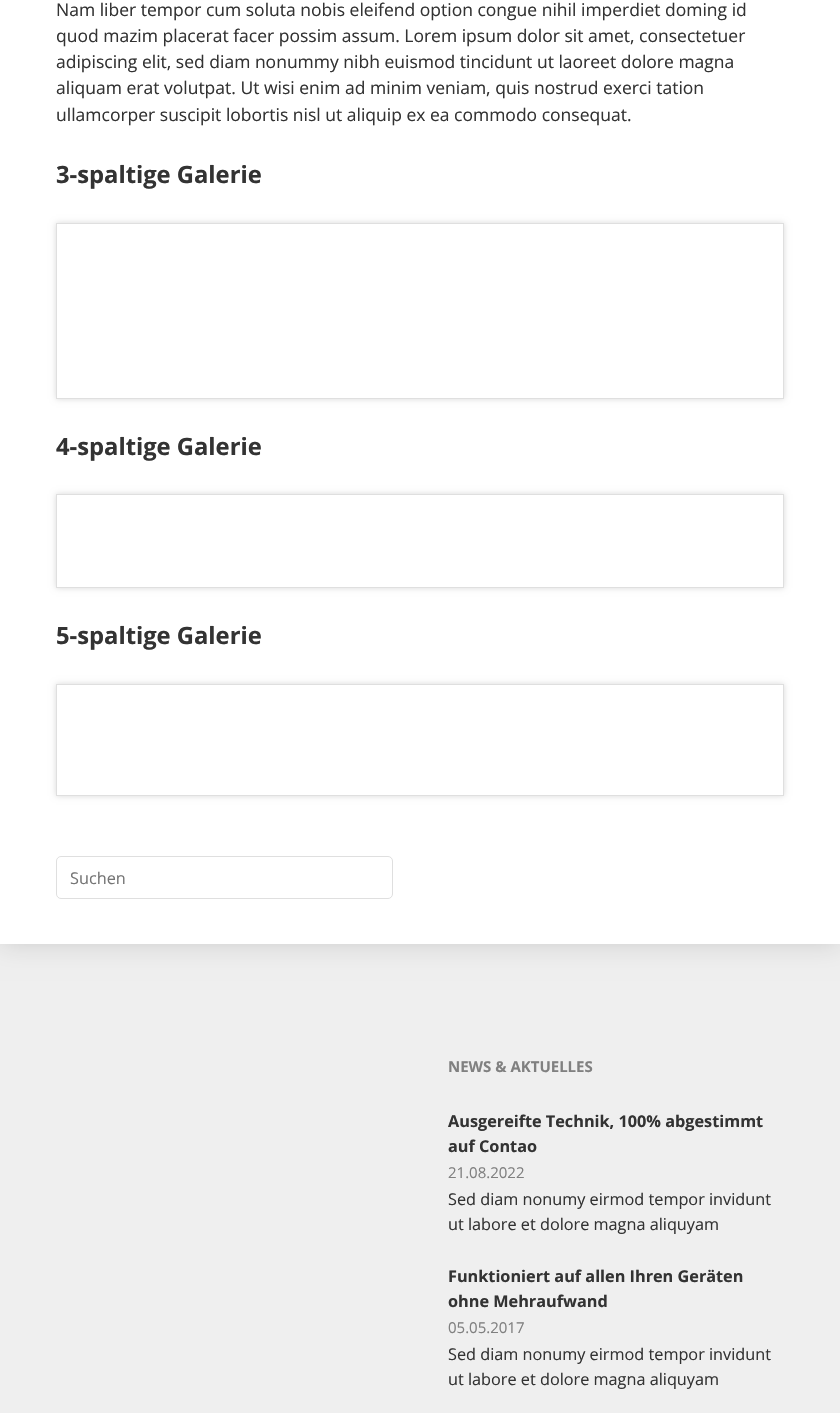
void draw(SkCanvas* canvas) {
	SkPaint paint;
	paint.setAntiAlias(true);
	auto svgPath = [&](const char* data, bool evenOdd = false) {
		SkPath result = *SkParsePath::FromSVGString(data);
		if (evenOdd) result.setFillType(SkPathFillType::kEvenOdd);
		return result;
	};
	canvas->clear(0xffefefef);
	paint.setColor(0x26000000);
	paint.setMaskFilter(SkMaskFilter::MakeBlur(kNormal_SkBlurStyle, 12.5));
	canvas->drawRect(SkRect::MakeXYWH(0, -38, 840, 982), paint);
	paint.setMaskFilter(nullptr);
	paint.setColor(0xffffffff);
	canvas->drawRect(SkRect::MakeXYWH(0, 0, 840, 944), paint);
	SkFont f1(fontMgr->matchFamilyStyle("Open Sans", SkFontStyle::Normal()), 17.5);
	f1.setSubpixel(true);
	paint.setColor(0xff333333);
	canvas->drawString("Nam liber tempor cum soluta nobis eleifend option congue nihil imperdiet doming id", 56, 16, f1, paint);
	canvas->drawString("quod mazim placerat facer possim assum. Lorem ipsum dolor sit amet, consectetuer", 56, 42, f1, paint);
	canvas->drawString("adipiscing elit, sed diam nonummy nibh euismod tincidunt ut laoreet dolore magna", 56, 68, f1, paint);
	canvas->drawString("aliquam erat volutpat. Ut wisi enim ad minim veniam, quis nostrud exerci tation", 56, 94, f1, paint);
	canvas->drawString("ullamcorper suscipit lobortis nisl ut aliquip ex ea commodo consequat.", 56, 121, f1, paint);
	SkFont f2(fontMgr->matchFamilyStyle("Open Sans", SkFontStyle::Bold()), 23.75);
	f2.setSubpixel(true);
	canvas->drawString("3-spaltige Galerie", 56, 183, f2, paint);
	canvas->save();
	canvas->clipPath(svgPath("M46 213H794V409H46ZM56 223H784V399H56Z", true), true);
	paint.setColor(0x26000000);
	paint.setMaskFilter(SkMaskFilter::MakeBlur(kNormal_SkBlurStyle, 3));
	canvas->drawRect(SkRect::MakeXYWH(56, 223, 728, 176), paint);
	paint.setMaskFilter(nullptr);
	canvas->restore();
	paint.setStroke(true);
	paint.setStrokeWidth(1);
	paint.setColor(0xffdfdfdf);
	canvas->drawRect(SkRect::MakeXYWH(56.5, 223.5, 727, 175), paint);
	paint.setStroke(false);
	paint.setColor(0xff333333);
	canvas->drawString("4-spaltige Galerie", 56, 455, f2, paint);
	canvas->save();
	canvas->clipPath(svgPath("M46 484H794V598H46ZM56 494H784V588H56Z", true), true);
	paint.setColor(0x26000000);
	paint.setMaskFilter(SkMaskFilter::MakeBlur(kNormal_SkBlurStyle, 3));
	canvas->drawRect(SkRect::MakeXYWH(56, 494, 728, 94), paint);
	paint.setMaskFilter(nullptr);
	canvas->restore();
	paint.setStroke(true);
	paint.setColor(0xffdfdfdf);
	canvas->drawRect(SkRect::MakeXYWH(56.5, 494.5, 727, 93), paint);
	paint.setStroke(false);
	paint.setColor(0xff333333);
	canvas->drawString("5-spaltige Galerie", 56, 644, f2, paint);
	canvas->save();
	canvas->clipPath(svgPath("M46 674H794V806H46ZM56 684H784V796H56Z", true), true);
	paint.setColor(0x26000000);
	paint.setMaskFilter(SkMaskFilter::MakeBlur(kNormal_SkBlurStyle, 3));
	canvas->drawRect(SkRect::MakeXYWH(56, 684, 728, 112), paint);
	paint.setMaskFilter(nullptr);
	canvas->restore();
	paint.setStroke(true);
	paint.setColor(0xffdfdfdf);
	canvas->drawRect(SkRect::MakeXYWH(56.5, 684.5, 727, 111), paint);
	canvas->drawRoundRect(SkRect::MakeXYWH(56.5, 856.5, 336, 42), 4.5, 4.5, paint);
	SkFont f3(fontMgr->matchFamilyStyle("Open Sans", SkFontStyle::Normal()), 16.25);
	f3.setSubpixel(true);
	paint.setStroke(false);
	paint.setColor(0xff757575);
	canvas->drawString("Suchen", 70, 884, f3, paint);
	SkFont f4(fontMgr->matchFamilyStyle("Open Sans", SkFontStyle::Bold()), 15);
	f4.setSubpixel(true);
	paint.setColor(0xff808080);
	canvas->drawString("NEWS & AKTUELLES", 448, 1072, f4, paint);
	SkFont f5(fontMgr->matchFamilyStyle("Open Sans", SkFontStyle::Bold()), 16.25);
	f5.setSubpixel(true);
	paint.setColor(0xff333333);
	canvas->drawString("Ausgereifte Technik, 100% abgestimmt", 448, 1127, f5, paint);
	canvas->drawString("auf Contao", 448, 1152, f5, paint);
	SkFont f6(fontMgr->matchFamilyStyle("Open Sans", SkFontStyle::Normal()), 15);
	f6.setSubpixel(true);
	paint.setColor(0xff808080);
	canvas->drawString("21.08.2022", 448, 1178, f6, paint);
	paint.setColor(0xff333333);
	canvas->drawString("Sed diam nonumy eirmod tempor invidunt", 448, 1205, f3, paint);
	canvas->drawString("ut labore et dolore magna aliquyam", 448, 1230, f3, paint);
	canvas->drawString("Funktioniert auf allen Ihren Geräten", 448, 1282, f5, paint);
	canvas->drawString("ohne Mehraufwand", 448, 1307, f5, paint);
	paint.setColor(0xff808080);
	canvas->drawString("05.05.2017", 448, 1333, f6, paint);
	paint.setColor(0xff333333);
	canvas->drawString("Sed diam nonumy eirmod tempor invidunt", 448, 1360, f3, paint);
	canvas->drawString("ut labore et dolore magna aliquyam", 448, 1385, f3, paint);
}
